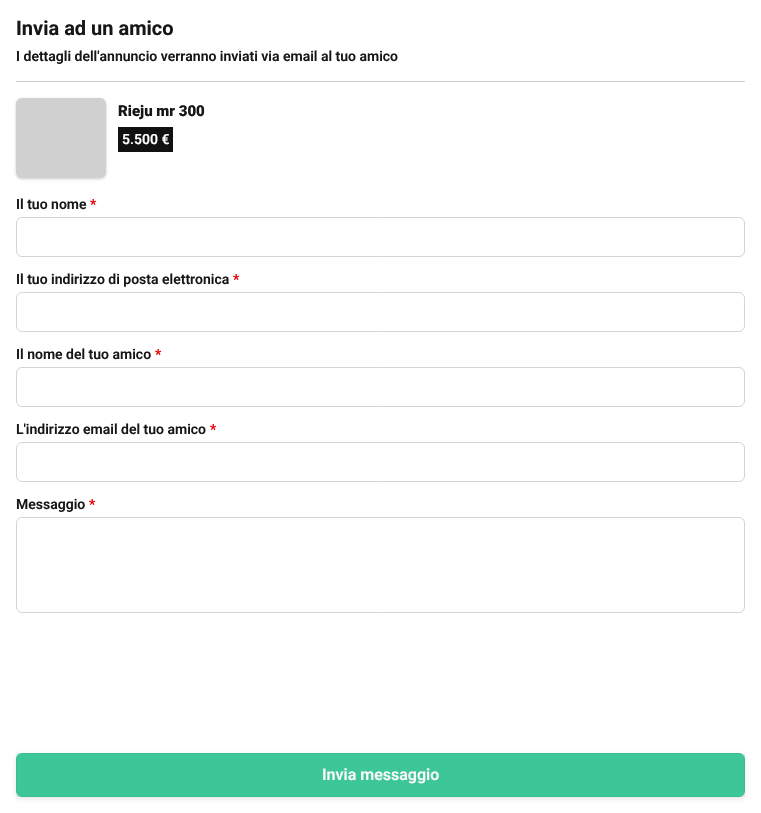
void draw(SkCanvas* canvas) {
	SkPaint paint;
	paint.setAntiAlias(true);
	canvas->clear(0xffffffff);
	SkFont f1(fontMgr->matchFamilyStyle("Roboto", SkFontStyle::Bold()), 20);
	f1.setSubpixel(true);
	paint.setColor(0xff171717);
	canvas->drawString("Invia ad un amico", 16, 35, f1, paint);
	paint.setColor(0xffcccccc);
	canvas->drawRect(SkRect::MakeXYWH(16, 81, 729, 1), paint);
	SkFont f2(fontMgr->matchFamilyStyle("Roboto", SkFontStyle(600, SkFontStyle::kNormal_Width, SkFontStyle::kUpright_Slant)), 14);
	f2.setSubpixel(true);
	paint.setColor(0xff171717);
	canvas->drawString("I dettagli dell'annuncio verranno inviati via email al tuo amico", 16, 61, f2, paint);
	paint.setColor(0x33000000);
	paint.setMaskFilter(SkMaskFilter::MakeBlur(kNormal_SkBlurStyle, 1.5));
	canvas->drawRoundRect(SkRect::MakeXYWH(16, 99, 90, 80), 6, 6, paint);
	paint.setMaskFilter(nullptr);
	canvas->drawImageRect(SkImages::DeferredFromEncodedData(SkData::MakeFromFileName("img1.png")), SkRect::MakeXYWH(16, 98, 90, 80), SkSamplingOptions());
	SkFont f3(fontMgr->matchFamilyStyle("Roboto", SkFontStyle(900, SkFontStyle::kNormal_Width, SkFontStyle::kUpright_Slant)), 15);
	f3.setSubpixel(true);
	paint.setColor(0xff171717);
	canvas->drawString("Rieju mr 300", 118, 116, f3, paint);
	paint.setColor(0xff111111);
	canvas->drawRect(SkRect::MakeXYWH(118, 127, 55, 25), paint);
	paint.setColor(0xffffffff);
	canvas->drawString("5.500 €", 122, 144, f2, paint);
	paint.setColor(0xff171717);
	canvas->drawString("Il tuo nome", 16, 209, f2, paint);
	SkFont f4(fontMgr->matchFamilyStyle("Roboto", SkFontStyle::Bold()), 14);
	f4.setSubpixel(true);
	paint.setColor(0xffe90303);
	canvas->drawString("*", 90, 209, f4, paint);
	paint.setStroke(true);
	paint.setStrokeWidth(1);
	paint.setColor(0xffd4d4d4);
	canvas->drawRoundRect(SkRect::MakeXYWH(16.5, 217.5, 728, 39), 5.5, 5.5, paint);
	paint.setStroke(false);
	paint.setColor(0xff171717);
	canvas->drawString("Il tuo indirizzo di posta elettronica", 16, 284, f2, paint);
	paint.setColor(0xffe90303);
	canvas->drawString("*", 233, 284, f4, paint);
	paint.setStroke(true);
	paint.setColor(0xffd4d4d4);
	canvas->drawRoundRect(SkRect::MakeXYWH(16.5, 292.5, 728, 39), 5.5, 5.5, paint);
	paint.setStroke(false);
	paint.setColor(0xff171717);
	canvas->drawString("Il nome del tuo amico", 16, 359, f2, paint);
	paint.setColor(0xffe90303);
	canvas->drawString("*", 155, 359, f4, paint);
	paint.setStroke(true);
	paint.setColor(0xffd4d4d4);
	canvas->drawRoundRect(SkRect::MakeXYWH(16.5, 367.5, 728, 39), 5.5, 5.5, paint);
	paint.setStroke(false);
	paint.setColor(0xff171717);
	canvas->drawString("L'indirizzo email del tuo amico", 16, 434, f2, paint);
	paint.setColor(0xffe90303);
	canvas->drawString("*", 210, 434, f4, paint);
	paint.setStroke(true);
	paint.setColor(0xffd4d4d4);
	canvas->drawRoundRect(SkRect::MakeXYWH(16.5, 442.5, 728, 39), 5.5, 5.5, paint);
	paint.setStroke(false);
	paint.setColor(0xff171717);
	canvas->drawString("Messaggio", 16, 509, f2, paint);
	paint.setColor(0xffe90303);
	canvas->drawString("*", 89, 509, f4, paint);
	paint.setStroke(true);
	paint.setColor(0xffd4d4d4);
	canvas->drawRoundRect(SkRect::MakeXYWH(16.5, 517.5, 728, 95), 5.5, 5.5, paint);
	paint.setStroke(false);
	paint.setColor(0x1a000000);
	paint.setMaskFilter(SkMaskFilter::MakeBlur(kNormal_SkBlurStyle, 2.5));
	canvas->drawRoundRect(SkRect::MakeXYWH(16, 755, 729, 44), 6, 6, paint);
	paint.setMaskFilter(nullptr);
	paint.setColor(0xff3dc697);
	canvas->drawRoundRect(SkRect::MakeXYWH(16, 753, 729, 44), 6, 6, paint);
	paint.setStroke(true);
	paint.setColor(0x0d000000);
	canvas->drawRect(SkRect::MakeXYWH(16.5, 753.5, 728, 43), paint);
	SkFont f5(fontMgr->matchFamilyStyle("Roboto", SkFontStyle(600, SkFontStyle::kNormal_Width, SkFontStyle::kUpright_Slant)), 16);
	f5.setSubpixel(true);
	paint.setStroke(false);
	paint.setColor(0xfff9f9f9);
	canvas->drawString("Invia messaggio", 322, 780, f5, paint);
}
